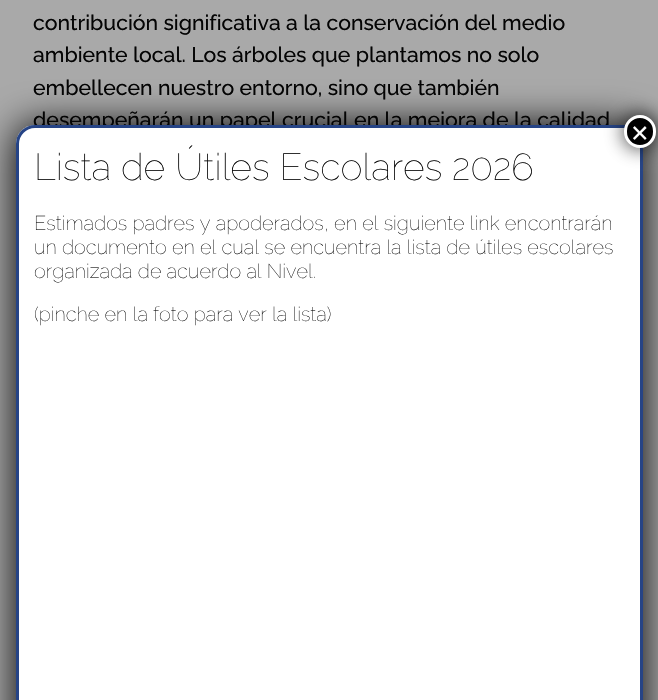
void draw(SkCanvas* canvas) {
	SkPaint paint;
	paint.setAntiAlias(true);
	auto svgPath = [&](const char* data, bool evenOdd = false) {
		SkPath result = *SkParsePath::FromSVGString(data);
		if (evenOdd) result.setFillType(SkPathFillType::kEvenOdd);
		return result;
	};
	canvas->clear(0xffa9a9a9);
	SkFont f1(fontMgr->matchFamilyStyle("Raleway", SkFontStyle(500, SkFontStyle::kNormal_Width, SkFontStyle::kUpright_Slant)), 21.25);
	f1.setSubpixel(true);
	paint.setColor(0xff040404);
	canvas->drawString("contribución significativa a la conservación del medio", 33, 30, f1, paint);
	canvas->drawString("ambiente local. Los árboles que plantamos no solo", 33, 62, f1, paint);
	canvas->drawString("embellecen nuestro entorno, sino que también", 33, 95, f1, paint);
	canvas->drawString("desempeñarán un papel crucial en la mejora de la calidad", 33, 127, f1, paint);
	paint.setColor(0xff020202);
	paint.setMaskFilter(SkMaskFilter::MakeBlur(kNormal_SkBlurStyle, 19));
	canvas->drawRoundRect(SkRect::MakeXYWH(16, 125, 627, 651), 19, 19, paint);
	paint.setMaskFilter(nullptr);
	paint.setColor(0xffffffff);
	canvas->drawPath(svgPath("M35 125H624C634.5 125 643 133.5 643 144V700H16V144C16 133.5 24.5 125 35 125Z"), paint);
	paint.setStroke(true);
	paint.setStrokeWidth(3);
	paint.setColor(0xff264486);
	canvas->drawRoundRect(SkRect::MakeXYWH(17.5, 126.5, 624, 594), 17.5, 17.5, paint);
	paint.setStroke(false);
	paint.setColor(0xbf020202);
	paint.setMaskFilter(SkMaskFilter::MakeBlur(kNormal_SkBlurStyle, 9.5));
	canvas->drawRoundRect(SkRect::MakeXYWH(623, 114, 35, 35), 17.5, 17.5, paint);
	paint.setMaskFilter(nullptr);
	paint.setColor(0xff000000);
	canvas->drawRoundRect(SkRect::MakeXYWH(625.5, 116.5, 29, 30), 14.5, 14.5, paint);
	paint.setStroke(true);
	paint.setColor(0xffffffff);
	canvas->drawRoundRect(SkRect::MakeXYWH(625.5, 116.5, 29, 30), 14.5, 14.5, paint);
	SkFont f2(fontMgr->matchFamilyStyle("Liberation Sans", SkFontStyle::Normal()), 30);
	f2.setSubpixel(true);
	paint.setStroke(false);
	canvas->drawString("×", 631, 143, f2, paint);
	SkFont f3(fontMgr->matchFamilyStyle("Raleway", SkFontStyle(100, SkFontStyle::kNormal_Width, SkFontStyle::kUpright_Slant)), 37.5);
	f3.setSubpixel(true);
	paint.setColor(0xff040404);
	canvas->drawString("Lista de Útiles Escolares 2026", 34, 180, f3, paint);
	SkFont f4(fontMgr->matchFamilyStyle("Raleway", SkFontStyle(100, SkFontStyle::kNormal_Width, SkFontStyle::kUpright_Slant)), 20);
	f4.setSubpixel(true);
	canvas->drawString("Estimados padres y apoderados, en el siguiente link encontrarán", 34, 230, f4, paint);
	canvas->drawString("un documento en el cual se encuentra la lista de útiles escolares", 34, 254, f4, paint);
	canvas->drawString("organizada de acuerdo al Nivel.", 34, 278, f4, paint);
	canvas->drawString("(pinche en la foto para ver la lista)", 34, 321, f4, paint);
}
